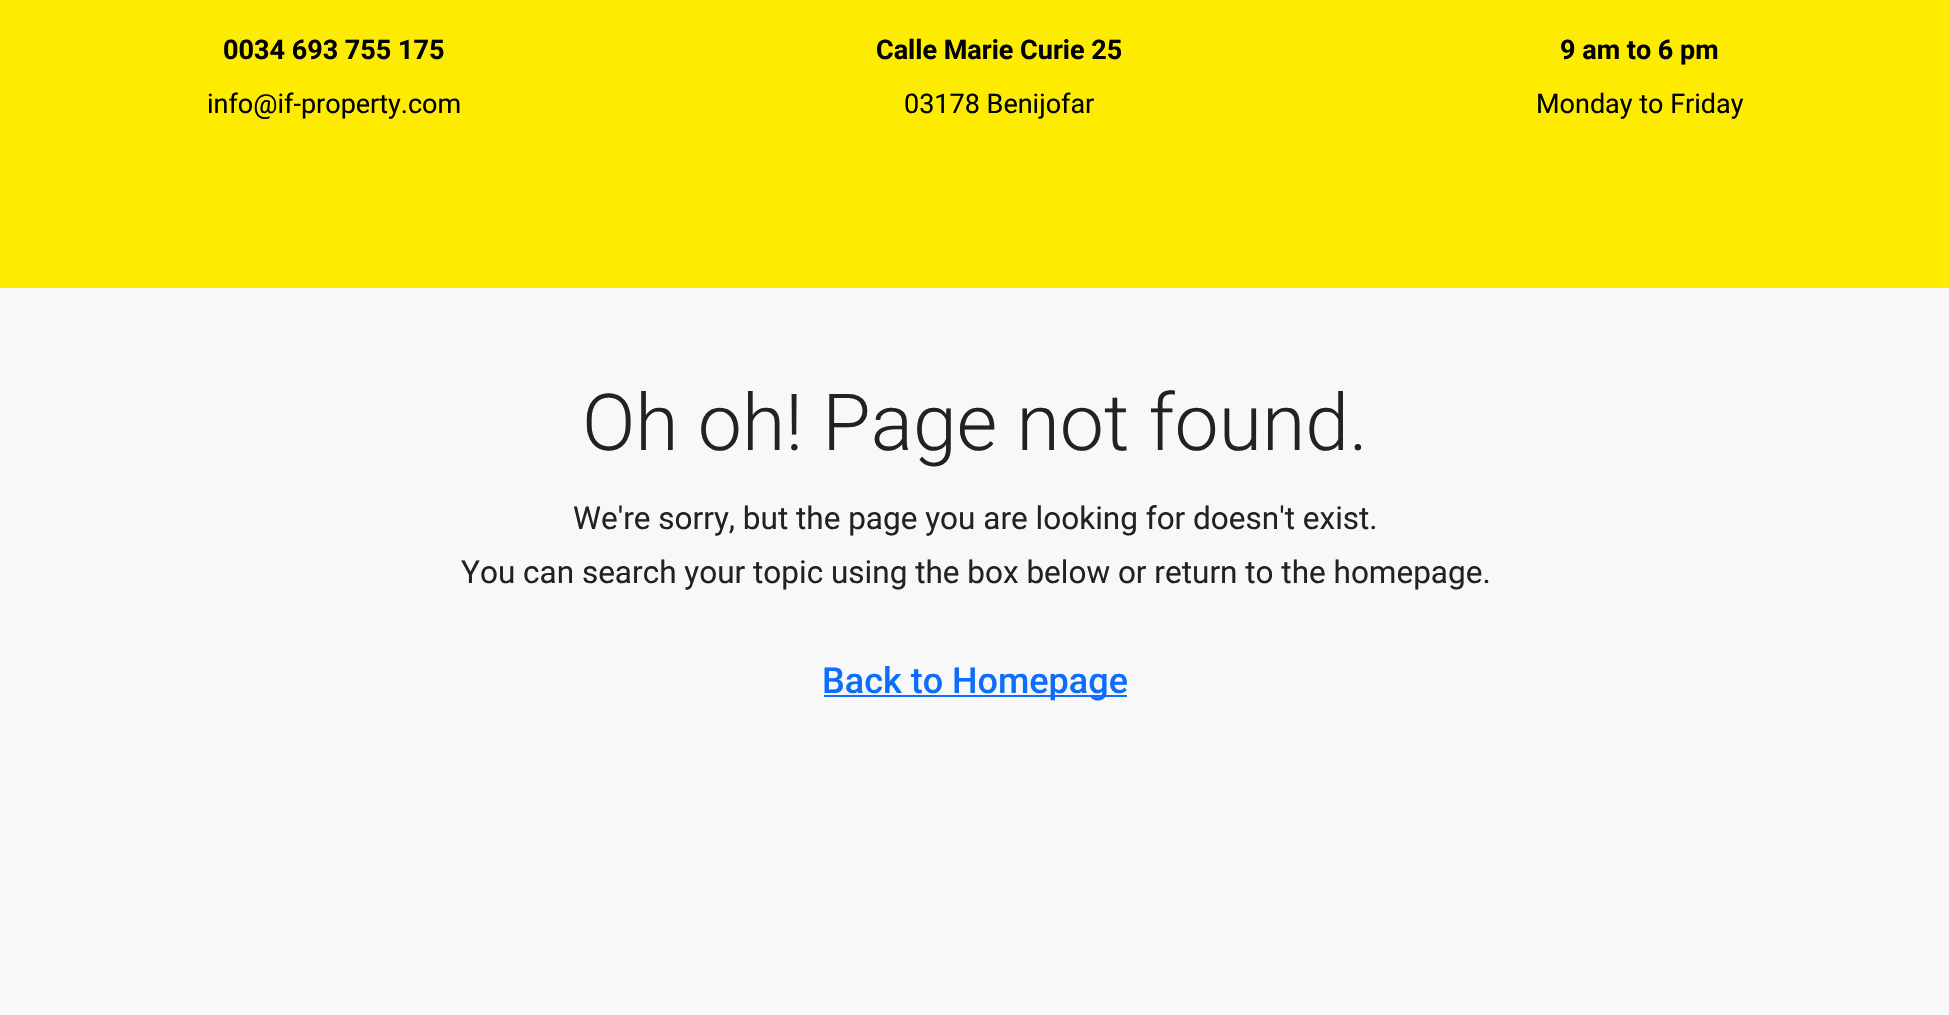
void draw(SkCanvas* canvas) {
	SkPaint paint;
	paint.setAntiAlias(true);
	canvas->clear(0xfff8f8f8);
	paint.setColor(0xfffdec00);
	canvas->drawRect(SkRect::MakeXYWH(0, 0, 1949, 288), paint);
	SkFont f1(fontMgr->matchFamilyStyle("Roboto", SkFontStyle::Bold()), 27);
	f1.setSubpixel(true);
	paint.setColor(0xff000000);
	canvas->drawString("0034 693 755 175", 223, 59, f1, paint);
	SkFont f2(fontMgr->matchFamilyStyle("Roboto", SkFontStyle::Normal()), 27);
	f2.setSubpixel(true);
	canvas->drawString("info@if-property.com", 207, 113, f2, paint);
	canvas->drawString("Calle Marie Curie 25", 876, 59, f1, paint);
	canvas->drawString("03178 Benijofar", 904, 113, f2, paint);
	canvas->drawString("9 am to 6 pm", 1560, 59, f1, paint);
	canvas->drawString("Monday to Friday", 1536, 113, f2, paint);
	SkFont f3(fontMgr->matchFamilyStyle("Roboto", SkFontStyle(300, SkFontStyle::kNormal_Width, SkFontStyle::kUpright_Slant)), 78.75);
	f3.setSubpixel(true);
	paint.setColor(0xff222222);
	canvas->drawString("Oh oh! Page not found.", 582, 450, f3, paint);
	SkFont f4(fontMgr->matchFamilyStyle("Roboto", SkFontStyle::Normal()), 31.5);
	f4.setSubpixel(true);
	canvas->drawString("We're sorry, but the page you are looking for doesn't exist.", 573, 529, f4, paint);
	canvas->drawString("You can search your topic using the box below or return to the homepage.", 461, 583, f4, paint);
	paint.setColor(0xff0d6efd);
	canvas->drawRect(SkRect::MakeXYWH(824, 695, 303, 2), paint);
	SkFont f5(fontMgr->matchFamilyStyle("Roboto", SkFontStyle(500, SkFontStyle::kNormal_Width, SkFontStyle::kUpright_Slant)), 36);
	f5.setSubpixel(true);
	canvas->drawString("Back to Homepage", 822, 693, f5, paint);
}
